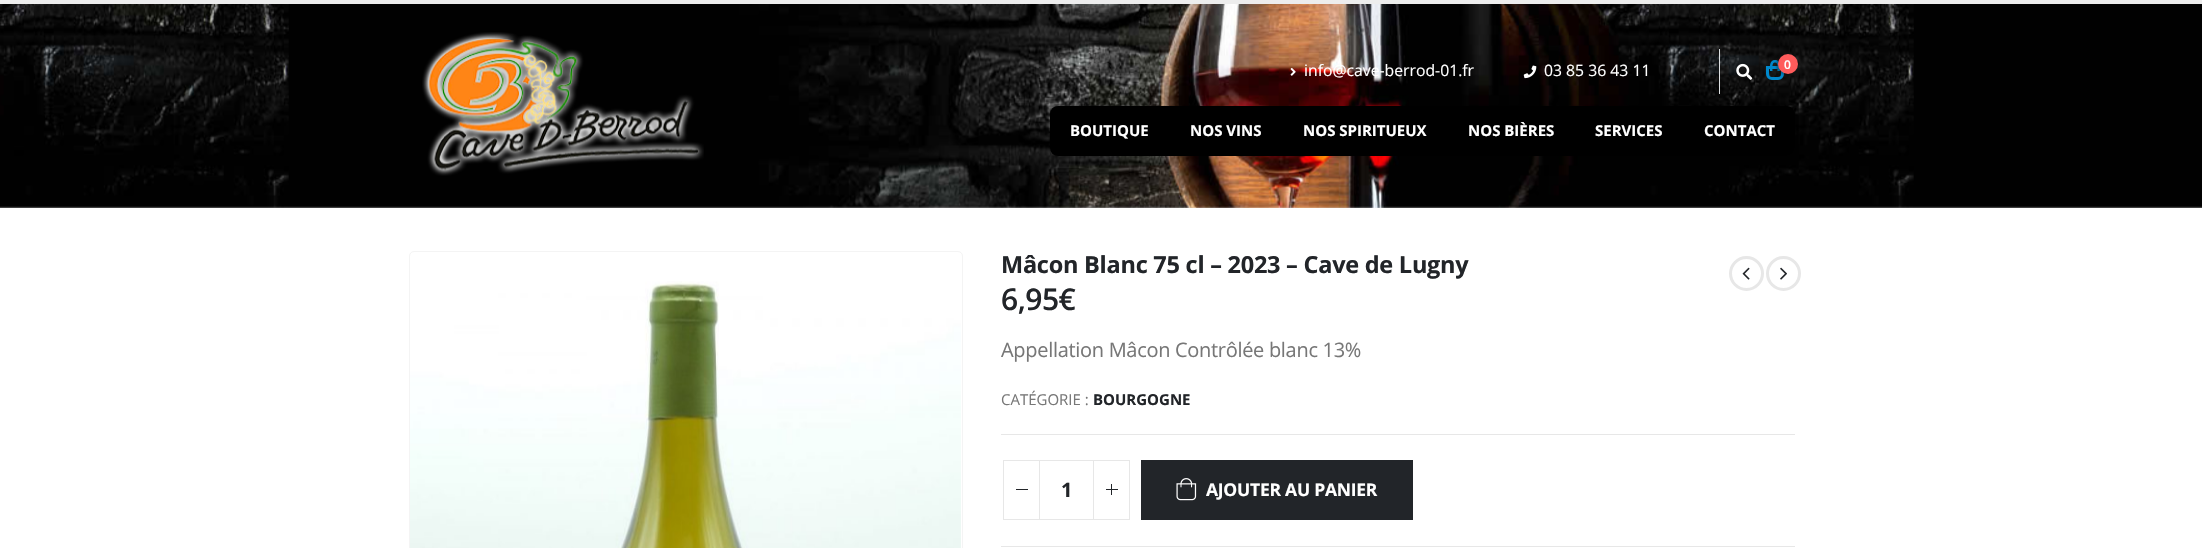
void draw(SkCanvas* canvas) {
	SkPaint paint;
	paint.setAntiAlias(true);
	auto spacedText = [&](const char* s, float x, float y, const SkFont& font, const SkPaint& ink, float letter, float word) {
		std::vector<SkGlyphID> glyphs(font.countText(s, strlen(s), SkTextEncoding::kUTF8));
		std::vector<float> xs(glyphs.size());
		font.textToGlyphs(s, strlen(s), SkTextEncoding::kUTF8, glyphs);
		font.getXPos(glyphs, xs, x);
		float extra = 0;
		for (size_t i = 0; i < glyphs.size(); i++) {
			xs[i] += extra;
			extra += letter + word * (glyphs[i] == font.unicharToGlyph(' '));
		}
		canvas->drawTextBlob(SkTextBlob::MakeFromPosHGlyphs(glyphs, xs, y, font), 0, 0, ink);
	};
	auto svgPath = [&](const char* data, bool evenOdd = false) {
		SkPath result = *SkParsePath::FromSVGString(data);
		if (evenOdd) result.setFillType(SkPathFillType::kEvenOdd);
		return result;
	};
	canvas->clear(0xffffffff);
	paint.setColor(0xffededed);
	canvas->drawRect(SkRect::MakeXYWH(0, 0, 2202, 4), paint);
	canvas->drawImageRect(SkImages::DeferredFromEncodedData(SkData::MakeFromFileName("img1.png")), SkRect::MakeXYWH(0, 4, 2202, 204), SkSamplingOptions());
	canvas->drawImageRect(SkImages::DeferredFromEncodedData(SkData::MakeFromFileName("img2.png")), SkRect::MakeXYWH(422, 32, 282, 144), SkSamplingOptions());
	paint.setColor(0xffdde0e2);
	canvas->drawRect(SkRect::MakeXYWH(1719, 49, 1, 45), paint);
	canvas->drawImageRect(SkImages::DeferredFromEncodedData(SkData::MakeFromFileName("img3.png")), SkRect::MakeXYWH(1290, 67, 6, 9), SkSamplingOptions());
	SkFont f1(fontMgr->matchFamilyStyle("Open Sans", SkFontStyle::Normal()), 15.75);
	f1.setSubpixel(true);
	paint.setColor(0xffffffff);
	canvas->drawString("info@cave-berrod-01.fr", 1304, 76, f1, paint);
	canvas->drawImageRect(SkImages::DeferredFromEncodedData(SkData::MakeFromFileName("img4.png")), SkRect::MakeXYWH(1523, 65, 14, 14), SkSamplingOptions());
	canvas->drawString("03 85 36 43 11", 1544, 76, f1, paint);
	paint.setColor(0x0d000000);
	canvas->drawRect(SkRect::MakeXYWH(1674, 61, 1, 6), paint);
	canvas->drawImageRect(SkImages::DeferredFromEncodedData(SkData::MakeFromFileName("img5.png")), SkRect::MakeXYWH(1736, 63, 17, 17), SkSamplingOptions());
	paint.setStroke(true);
	paint.setStrokeWidth(3);
	paint.setColor(0xff0088cc);
	canvas->drawPath(svgPath("M1767.5 67.5H1782.5V74C1782.5 76.5 1780.5 78.5 1778 78.5H1772C1769.5 78.5 1767.5 76.5 1767.5 74Z"), paint);
	paint.setStroke(false);
	canvas->drawPath(svgPath("M1775 60C1781 60 1780 67 1780 71H1770C1770 67 1769 60 1775 60ZM1775 62.5C1778.5 62.5 1777.5 69 1777.5 71H1772.5C1772.5 69 1771.5 62.5 1775 62.5Z", true), paint);
	paint.setColor(0x4d000000);
	paint.setMaskFilter(SkMaskFilter::MakeBlur(kNormal_SkBlurStyle, 1));
	canvas->drawRoundRect(SkRect::MakeXYWH(1776, 55, 20, 20), 10, 10, paint);
	paint.setMaskFilter(nullptr);
	paint.setColor(0xffff5b5b);
	canvas->drawCircle(1788, 64, 10, paint);
	SkFont f2(fontMgr->matchFamilyStyle("Open Sans", SkFontStyle(600, SkFontStyle::kNormal_Width, SkFontStyle::kUpright_Slant)), 12);
	f2.setSubpixel(true);
	paint.setColor(0xffffffff);
	canvas->drawString("0", 1784, 69, f2, paint);
	paint.setColor(0xff000000);
	canvas->drawRoundRect(SkRect::MakeXYWH(1050, 106, 745, 50), 8, 8, paint);
	SkFont f3(fontMgr->matchFamilyStyle("Open Sans", SkFontStyle::Bold()), 15);
	f3.setSubpixel(true);
	paint.setColor(0xffffffff);
	canvas->drawString("BOUTIQUE", 1070, 136, f3, paint);
	canvas->drawString("NOS VINS", 1190, 136, f3, paint);
	canvas->drawString("NOS SPIRITUEUX", 1303, 136, f3, paint);
	canvas->drawString("NOS BIÈRES", 1468, 136, f3, paint);
	canvas->drawString("SERVICES", 1595, 136, f3, paint);
	canvas->drawString("CONTACT", 1704, 136, f3, paint);
	paint.setStroke(true);
	paint.setStrokeWidth(1);
	paint.setColor(0xfff4f4f4);
	canvas->drawRoundRect(SkRect::MakeXYWH(409.5, 251.5, 553, 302), 4.5, 4.5, paint);
	canvas->drawImageRect(SkImages::DeferredFromEncodedData(SkData::MakeFromFileName("img6.png")), SkRect::MakeXYWH(410, 281, 551, 267), SkSamplingOptions());
	SkFont f4(fontMgr->matchFamilyStyle("Open Sans", SkFontStyle::Bold()), 23.5);
	f4.setSubpixel(true);
	paint.setStroke(false);
	paint.setColor(0xff222529);
	spacedText("Mâcon Blanc 75 cl – 2023 – Cave de Lugny", 1001, 273, f4, paint, -0.25, 0);
	paint.setStroke(true);
	paint.setStrokeWidth(3);
	paint.setColor(0xffe7e7e7);
	canvas->drawCircle(1746.5, 273.5, 16, paint);
	canvas->drawImageRect(SkImages::DeferredFromEncodedData(SkData::MakeFromFileName("img7.png")), SkRect::MakeXYWH(1742, 267, 8, 13), SkSamplingOptions());
	canvas->drawCircle(1783.5, 273.5, 16, paint);
	canvas->drawImageRect(SkImages::DeferredFromEncodedData(SkData::MakeFromFileName("img8.png")), SkRect::MakeXYWH(1780, 267, 7, 13), SkSamplingOptions());
	SkFont f5(fontMgr->matchFamilyStyle("Open Sans", SkFontStyle(600, SkFontStyle::kNormal_Width, SkFontStyle::kUpright_Slant)), 30);
	f5.setSubpixel(true);
	paint.setStroke(false);
	paint.setColor(0xff222529);
	spacedText("6,95€", 1001, 310, f5, paint, -0.5, 0);
	SkFont f6(fontMgr->matchFamilyStyle("Open Sans", SkFontStyle::Normal()), 20);
	f6.setSubpixel(true);
	paint.setColor(0xff777777);
	spacedText("Appellation Mâcon Contrôlée blanc 13%", 1001, 357, f6, paint, -0.3, 0);
	SkFont f7(fontMgr->matchFamilyStyle("Open Sans", SkFontStyle::Normal()), 15);
	f7.setSubpixel(true);
	canvas->drawString("CATÉGORIE :", 1001, 405, f7, paint);
	paint.setColor(0xff222529);
	canvas->drawString("BOURGOGNE", 1093, 405, f3, paint);
	paint.setColor(0xffe7e7e7);
	canvas->drawRect(SkRect::MakeXYWH(1001, 434, 794, 1), paint);
	canvas->drawRect(SkRect::MakeXYWH(1001, 546, 794, 1), paint);
	canvas->drawRect(SkRect::MakeXYWH(1039, 460, 55, 1), paint);
	canvas->drawRect(SkRect::MakeXYWH(1039, 519, 55, 1), paint);
	paint.setStroke(true);
	paint.setStrokeWidth(1);
	canvas->drawRect(SkRect::MakeXYWH(1003.5, 460.5, 36, 59), paint);
	paint.setStroke(false);
	paint.setColor(0xff222529);
	canvas->drawRect(SkRect::MakeXYWH(1016, 489, 12, 1), paint);
	SkFont f8(fontMgr->matchFamilyStyle("Open Sans", SkFontStyle::Bold()), 20);
	f8.setSubpixel(true);
	canvas->drawString("1", 1061, 497, f8, paint);
	paint.setStroke(true);
	paint.setColor(0xffe7e7e7);
	canvas->drawRect(SkRect::MakeXYWH(1093.5, 460.5, 36, 59), paint);
	paint.setStroke(false);
	paint.setColor(0xff222529);
	canvas->drawRect(SkRect::MakeXYWH(1106, 489, 12, 1), paint);
	canvas->drawRect(SkRect::MakeXYWH(1111, 484, 1, 11), paint);
	canvas->drawRect(SkRect::MakeXYWH(1141, 460, 272, 60), paint);
	canvas->drawImageRect(SkImages::DeferredFromEncodedData(SkData::MakeFromFileName("img9.png")), SkRect::MakeXYWH(1176, 478, 21, 23), SkSamplingOptions());
	SkFont f9(fontMgr->matchFamilyStyle("Open Sans", SkFontStyle::Bold()), 17.5);
	f9.setSubpixel(true);
	paint.setColor(0xffffffff);
	spacedText("AJOUTER AU PANIER", 1206, 496, f9, paint, -0.25, 0);
}
